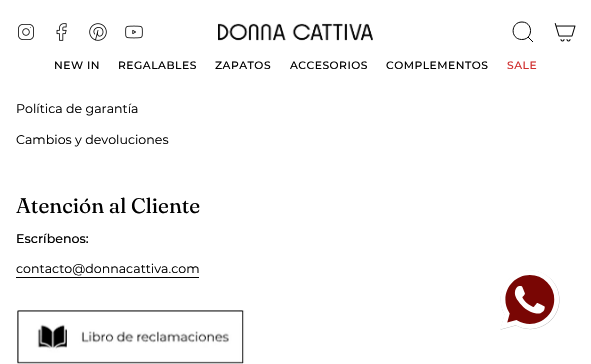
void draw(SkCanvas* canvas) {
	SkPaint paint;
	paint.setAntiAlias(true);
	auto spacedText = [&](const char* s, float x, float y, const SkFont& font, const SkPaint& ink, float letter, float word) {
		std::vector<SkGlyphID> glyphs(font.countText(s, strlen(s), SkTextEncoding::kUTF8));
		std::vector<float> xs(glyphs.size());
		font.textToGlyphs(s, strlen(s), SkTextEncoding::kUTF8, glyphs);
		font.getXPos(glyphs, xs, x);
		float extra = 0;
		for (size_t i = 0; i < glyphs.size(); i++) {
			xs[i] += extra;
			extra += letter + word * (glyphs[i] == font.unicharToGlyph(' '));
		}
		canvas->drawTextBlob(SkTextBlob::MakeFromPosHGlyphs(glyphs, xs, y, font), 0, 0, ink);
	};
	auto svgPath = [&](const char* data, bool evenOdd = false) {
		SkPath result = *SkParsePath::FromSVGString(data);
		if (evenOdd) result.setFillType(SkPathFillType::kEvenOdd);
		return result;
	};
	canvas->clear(0xffffffff);
	canvas->drawImageRect(SkImages::DeferredFromEncodedData(SkData::MakeFromFileName("img1.png")), SkRect::MakeXYWH(18, 24, 16, 16), SkSamplingOptions());
	canvas->drawImageRect(SkImages::DeferredFromEncodedData(SkData::MakeFromFileName("img2.png")), SkRect::MakeXYWH(56, 23, 11, 18), SkSamplingOptions());
	canvas->drawImageRect(SkImages::DeferredFromEncodedData(SkData::MakeFromFileName("img3.png")), SkRect::MakeXYWH(89, 23, 18, 18), SkSamplingOptions());
	canvas->drawImageRect(SkImages::DeferredFromEncodedData(SkData::MakeFromFileName("img4.png")), SkRect::MakeXYWH(125, 25, 18, 14), SkSamplingOptions());
	canvas->drawImageRect(SkImages::DeferredFromEncodedData(SkData::MakeFromFileName("img5.png")), SkRect::MakeXYWH(218, 23, 155, 18), SkSamplingOptions());
	paint.setStroke(true);
	paint.setStrokeWidth(1);
	paint.setColor(0xff000000);
	canvas->drawPath(svgPath("M522 22C533.5 22 533.5 40 521.5 39.5C510 39 510.5 22 522 22ZM528 37L533 42"), paint);
	canvas->drawImageRect(SkImages::DeferredFromEncodedData(SkData::MakeFromFileName("img6.png")), SkRect::MakeXYWH(554, 23, 22, 19), SkSamplingOptions());
	SkFont f1(fontMgr->matchFamilyStyle("Montserrat", SkFontStyle(500, SkFontStyle::kNormal_Width, SkFontStyle::kUpright_Slant)), 10.75);
	f1.setSubpixel(true);
	paint.setStroke(false);
	spacedText("NEW IN", 54, 69, f1, paint, 0.5, 0);
	spacedText("REGALABLES", 118, 69, f1, paint, 0.5, 0);
	spacedText("ZAPATOS", 215, 69, f1, paint, 0.5, 0);
	spacedText("ACCESORIOS", 290, 69, f1, paint, 0.5, 0);
	spacedText("COMPLEMENTOS", 386, 69, f1, paint, 0.5, 0);
	paint.setColor(0xffd02e2e);
	spacedText("SALE", 507, 69, f1, paint, 0.5, 0);
	SkFont f2(fontMgr->matchFamilyStyle("Montserrat", SkFontStyle::Normal()), 12.6);
	f2.setSubpixel(true);
	paint.setColor(0xff000000);
	canvas->drawString("Política de garantía", 16, 113, f2, paint);
	canvas->drawString("Cambios y devoluciones", 16, 144, f2, paint);
	SkFont f3(fontMgr->matchFamilyStyle("Fraunces", SkFontStyle::Normal()), 21);
	f3.setSubpixel(true);
	canvas->drawString("Atención al Cliente", 16, 213, f3, paint);
	SkFont f4(fontMgr->matchFamilyStyle("Montserrat", SkFontStyle(500, SkFontStyle::kNormal_Width, SkFontStyle::kUpright_Slant)), 12.6);
	f4.setSubpixel(true);
	canvas->drawString("Escríbenos:", 16, 243, f4, paint);
	canvas->drawRect(SkRect::MakeXYWH(16, 277, 183, 1), paint);
	canvas->drawString("contacto@donnacattiva.com", 16, 273, f2, paint);
	canvas->drawImageRect(SkImages::DeferredFromEncodedData(SkData::MakeFromFileName("img7.png")), SkRect::MakeXYWH(17, 310, 228, 54), SkSamplingOptions());
	canvas->drawImageRect(SkImages::DeferredFromEncodedData(SkData::MakeFromFileName("img8.png")), SkRect::MakeXYWH(500, 270, 60, 60), SkSamplingOptions());
}
